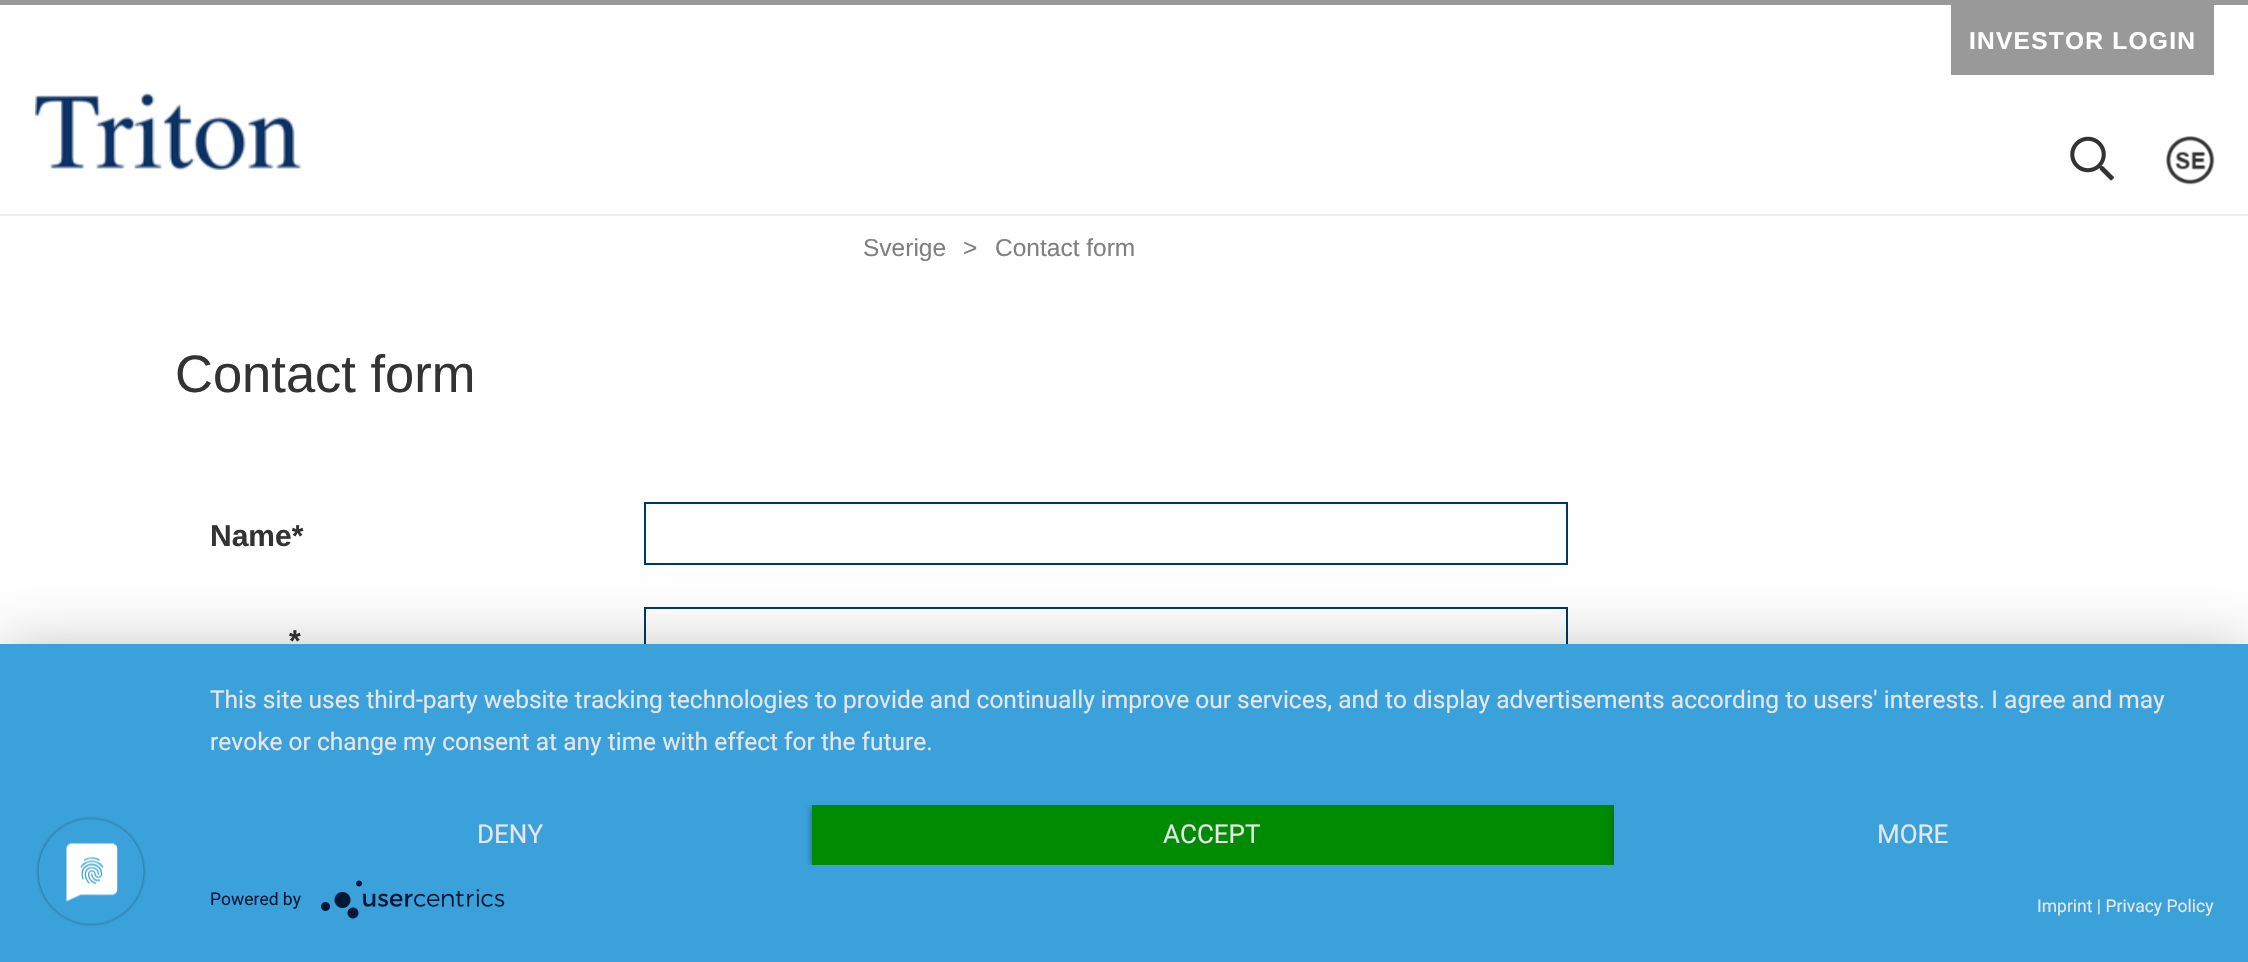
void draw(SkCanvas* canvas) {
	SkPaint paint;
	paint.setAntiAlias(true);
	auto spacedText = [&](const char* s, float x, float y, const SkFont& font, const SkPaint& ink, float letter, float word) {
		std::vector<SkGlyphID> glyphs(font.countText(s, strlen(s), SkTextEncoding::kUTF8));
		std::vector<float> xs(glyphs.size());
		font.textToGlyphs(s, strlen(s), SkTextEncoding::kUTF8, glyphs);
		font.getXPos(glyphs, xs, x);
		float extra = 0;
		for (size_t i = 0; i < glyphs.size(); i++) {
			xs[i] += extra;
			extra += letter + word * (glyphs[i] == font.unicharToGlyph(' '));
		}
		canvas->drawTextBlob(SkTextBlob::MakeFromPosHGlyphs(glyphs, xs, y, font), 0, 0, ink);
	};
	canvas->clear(0xffffffff);
	paint.setColor(0xff999999);
	canvas->drawRect(SkRect::MakeXYWH(0, 0, 2248, 5), paint);
	paint.setColor(0xffedeeee);
	canvas->drawRect(SkRect::MakeXYWH(0, 214, 2248, 2), paint);
	paint.setColor(0xff999999);
	canvas->drawRect(SkRect::MakeXYWH(1951, 5, 263, 70), paint);
	SkFont f1(fontMgr->matchFamilyStyle("Liberation Sans", SkFontStyle::Bold()), 24.5);
	f1.setSubpixel(true);
	paint.setColor(0xffffffff);
	spacedText("INVESTOR LOGIN", 1969, 49, f1, paint, 1.25, 0);
	canvas->drawImageRect(SkImages::DeferredFromEncodedData(SkData::MakeFromFileName("img1.png")), SkRect::MakeXYWH(2070, 136, 44, 45), SkSamplingOptions());
	canvas->drawImageRect(SkImages::DeferredFromEncodedData(SkData::MakeFromFileName("img2.png")), SkRect::MakeXYWH(2166, 136, 49, 49), SkSamplingOptions());
	canvas->drawImageRect(SkImages::DeferredFromEncodedData(SkData::MakeFromFileName("img3.png")), SkRect::MakeXYWH(35, 92, 267, 78), SkSamplingOptions());
	SkFont f2(fontMgr->matchFamilyStyle("Liberation Sans", SkFontStyle::Normal()), 24.5);
	f2.setSubpixel(true);
	paint.setColor(0xff808080);
	canvas->drawString("Sverige", 863, 256, f2, paint);
	canvas->drawString(">", 963, 256, f2, paint);
	canvas->drawString("Contact form", 995, 256, f2, paint);
	SkFont f3(fontMgr->matchFamilyStyle("Liberation Sans", SkFontStyle::Normal()), 52.5);
	f3.setSubpixel(true);
	paint.setColor(0xff333333);
	canvas->drawString("Contact form", 175, 392, f3, paint);
	SkFont f4(fontMgr->matchFamilyStyle("Liberation Sans", SkFontStyle::Bold()), 30);
	f4.setSubpixel(true);
	canvas->drawString("Name*", 210, 546, f4, paint);
	paint.setStroke(true);
	paint.setStrokeWidth(2);
	paint.setColor(0xff003865);
	canvas->drawRect(SkRect::MakeXYWH(645, 503, 922, 61), paint);
	paint.setStroke(false);
	paint.setColor(0xff333333);
	canvas->drawString("*", 289, 651, f4, paint);
	paint.setStroke(true);
	paint.setColor(0xff003865);
	canvas->drawRect(SkRect::MakeXYWH(645, 608, 922, 61), paint);
	paint.setStroke(false);
	paint.setColor(0x4d000000);
	paint.setMaskFilter(SkMaskFilter::MakeBlur(kNormal_SkBlurStyle, 31.5));
	canvas->drawRect(SkRect::MakeXYWH(0, 655, 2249, 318), paint);
	paint.setMaskFilter(nullptr);
	paint.setColor(0xff3ba1db);
	canvas->drawRect(SkRect::MakeXYWH(0, 644, 2248, 318), paint);
	canvas->drawImageRect(SkImages::DeferredFromEncodedData(SkData::MakeFromFileName("img4.png")), SkRect::MakeXYWH(36, 816, 110, 111), SkSamplingOptions());
	SkFont f5(fontMgr->matchFamilyStyle("Roboto", SkFontStyle::Normal()), 24.5);
	f5.setSubpixel(true);
	paint.setColor(0xffe6e6e6);
	canvas->drawString("This site uses third-party website tracking technologies to provide and continually improve our services, and to display advertisements according to users' interests. I agree and may", 210, 708, f5, paint);
	canvas->drawString("revoke or change my consent at any time with effect for the future.", 210, 750, f5, paint);
	SkFont f6(fontMgr->matchFamilyStyle("Roboto", SkFontStyle::Normal()), 26);
	f6.setSubpixel(true);
	canvas->drawString("DENY", 477, 843, f6, paint);
	canvas->save();
	canvas->clipRect(SkRect::MakeXYWH(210, 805, 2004, 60));
	paint.setColor(0x66000000);
	paint.setMaskFilter(SkMaskFilter::MakeBlur(kNormal_SkBlurStyle, 3.5));
	canvas->drawRect(SkRect::MakeXYWH(812, 807, 802, 59), paint);
	paint.setMaskFilter(nullptr);
	canvas->restore();
	paint.setColor(0xff008b02);
	canvas->drawRect(SkRect::MakeXYWH(812, 805, 802, 60), paint);
	paint.setColor(0xffe6e6e6);
	canvas->drawString("ACCEPT", 1163, 843, f6, paint);
	canvas->save();
	canvas->clipRect(SkRect::MakeXYWH(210, 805, 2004, 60));
	paint.setColor(0x66000000);
	paint.setMaskFilter(SkMaskFilter::MakeBlur(kNormal_SkBlurStyle, 3.5));
	canvas->drawRect(SkRect::MakeXYWH(1614, 807, 600, 59), paint);
	paint.setMaskFilter(nullptr);
	canvas->restore();
	paint.setColor(0xff3ba1db);
	canvas->drawRect(SkRect::MakeXYWH(1614, 805, 600, 60), paint);
	paint.setColor(0xffe6e6e6);
	canvas->drawString("MORE", 1877, 843, f6, paint);
	SkFont f7(fontMgr->matchFamilyStyle("Roboto", SkFontStyle::Normal()), 17.5);
	f7.setSubpixel(true);
	paint.setColor(0xff021836);
	canvas->drawString("Powered by", 210, 905, f7, paint);
	canvas->drawImageRect(SkImages::DeferredFromEncodedData(SkData::MakeFromFileName("img5.png")), SkRect::MakeXYWH(321, 880, 184, 39), SkSamplingOptions());
	paint.setColor(0xffe6e6e6);
	canvas->drawString("Imprint | Privacy Policy", 2037, 912, f7, paint);
}
